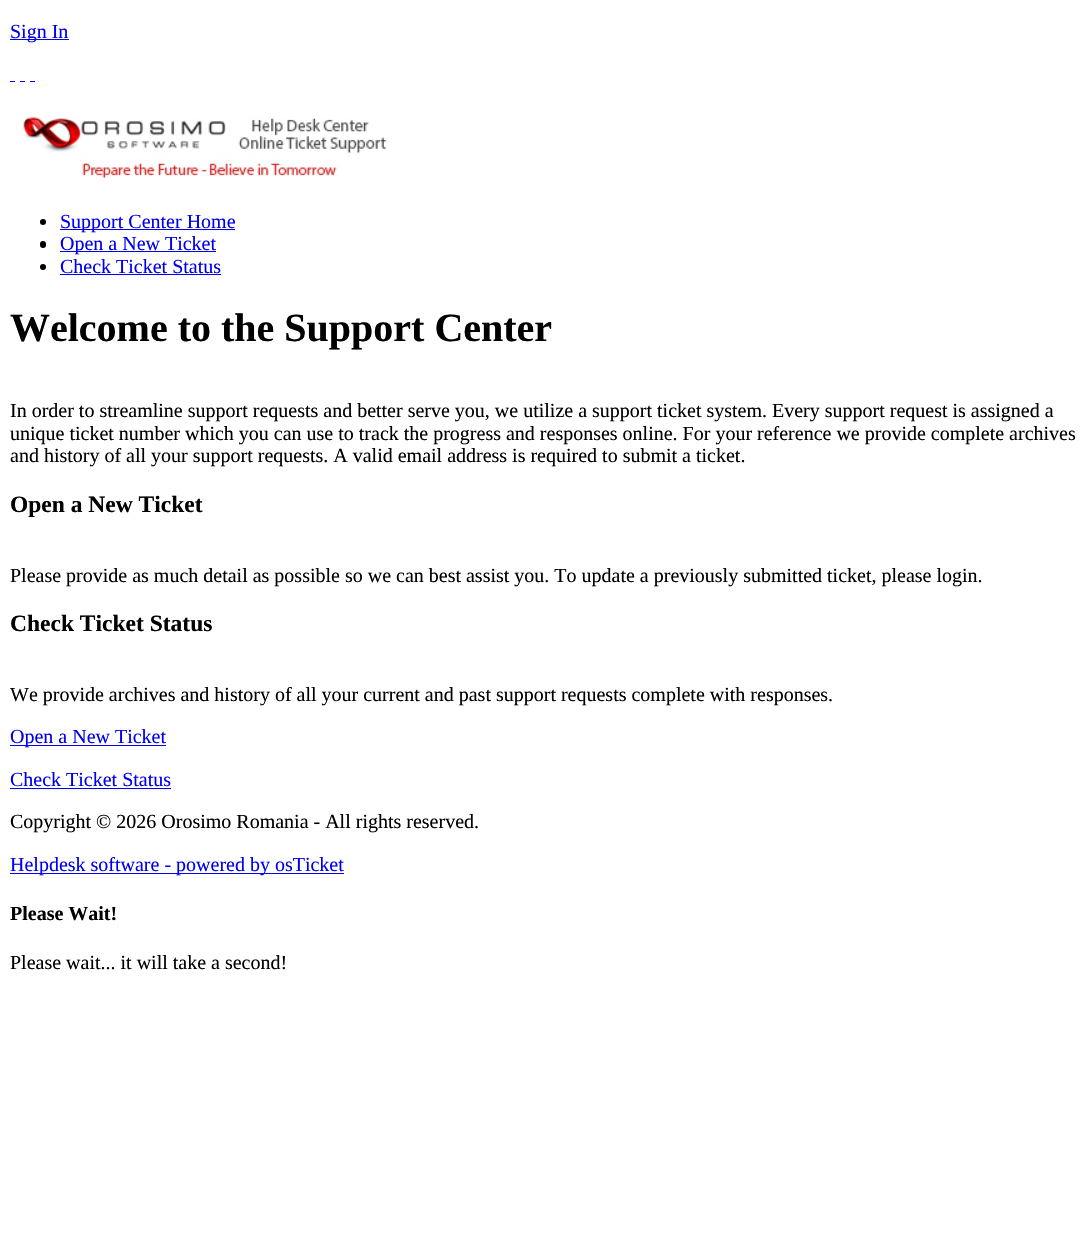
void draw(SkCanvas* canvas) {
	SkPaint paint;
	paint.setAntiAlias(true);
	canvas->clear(0xffffffff);
	paint.setColor(0xff0000ee);
	canvas->drawRect(SkRect::MakeXYWH(10, 39, 59, 1), paint);
	SkFont f1(fontMgr->matchFamilyStyle("Liberation Serif", SkFontStyle::Normal()), 20);
	f1.setSubpixel(true);
	canvas->drawString("Sign In", 10, 38, f1, paint);
	canvas->drawRect(SkRect::MakeXYWH(10, 81, 5, 1), paint);
	canvas->drawRect(SkRect::MakeXYWH(20, 81, 5, 1), paint);
	canvas->drawRect(SkRect::MakeXYWH(30, 81, 5, 1), paint);
	canvas->drawImageRect(SkImages::DeferredFromEncodedData(SkData::MakeFromFileName("img1.png")), SkRect::MakeXYWH(23, 115, 364, 63), SkSamplingOptions());
	paint.setColor(0xff000000);
	canvas->drawCircle(43, 222, 3, paint);
	paint.setColor(0xff0000ee);
	canvas->drawRect(SkRect::MakeXYWH(60, 229, 175, 1), paint);
	canvas->drawString("Support Center Home", 60, 228, f1, paint);
	paint.setColor(0xff000000);
	canvas->drawRoundRect(SkRect::MakeXYWH(40, 241, 6, 7), 3, 3, paint);
	paint.setColor(0xff0000ee);
	canvas->drawRect(SkRect::MakeXYWH(60, 251, 156, 1), paint);
	canvas->drawString("Open a New Ticket", 60, 250, f1, paint);
	paint.setColor(0xff000000);
	canvas->drawCircle(43, 267, 3, paint);
	paint.setColor(0xff0000ee);
	canvas->drawString("Check Ticket Status", 60, 273, f1, paint);
	canvas->drawRect(SkRect::MakeXYWH(60, 274, 161, 1), paint);
	SkFont f2(fontMgr->matchFamilyStyle("Liberation Serif", SkFontStyle::Bold()), 40);
	f2.setSubpixel(true);
	paint.setColor(0xff000000);
	canvas->drawString("Welcome to the Support Center", 10, 341, f2, paint);
	canvas->drawString("In order to streamline support requests and better serve you, we utilize a support ticket system. Every support request is assigned a", 10, 417, f1, paint);
	canvas->drawString("unique ticket number which you can use to track the progress and responses online. For your reference we provide complete archives", 10, 440, f1, paint);
	canvas->drawString("and history of all your support requests. A valid email address is required to submit a ticket.", 10, 462, f1, paint);
	SkFont f3(fontMgr->matchFamilyStyle("Liberation Serif", SkFontStyle::Bold()), 23.5);
	f3.setSubpixel(true);
	canvas->drawString("Open a New Ticket", 10, 512, f3, paint);
	canvas->drawString("Please provide as much detail as possible so we can best assist you. To update a previously submitted ticket, please login.", 10, 582, f1, paint);
	canvas->drawString("Check Ticket Status", 10, 631, f3, paint);
	canvas->drawString("We provide archives and history of all your current and past support requests complete with responses.", 10, 701, f1, paint);
	paint.setColor(0xff0000ee);
	canvas->drawRect(SkRect::MakeXYWH(10, 745, 156, 1), paint);
	canvas->drawString("Open a New Ticket", 10, 743, f1, paint);
	canvas->drawString("Check Ticket Status", 10, 786, f1, paint);
	canvas->drawRect(SkRect::MakeXYWH(10, 788, 161, 1), paint);
	paint.setColor(0xff000000);
	canvas->drawString("Copyright © 2026 Orosimo Romania - All rights reserved.", 10, 828, f1, paint);
	paint.setColor(0xff0000ee);
	canvas->drawRect(SkRect::MakeXYWH(10, 873, 334, 1), paint);
	canvas->drawString("Helpdesk software - powered by osTicket", 10, 871, f1, paint);
	SkFont f4(fontMgr->matchFamilyStyle("Liberation Serif", SkFontStyle::Bold()), 20);
	f4.setSubpixel(true);
	paint.setColor(0xff000000);
	canvas->drawString("Please Wait!", 10, 920, f4, paint);
	canvas->drawString("Please wait... it will take a second!", 10, 969, f1, paint);
}
